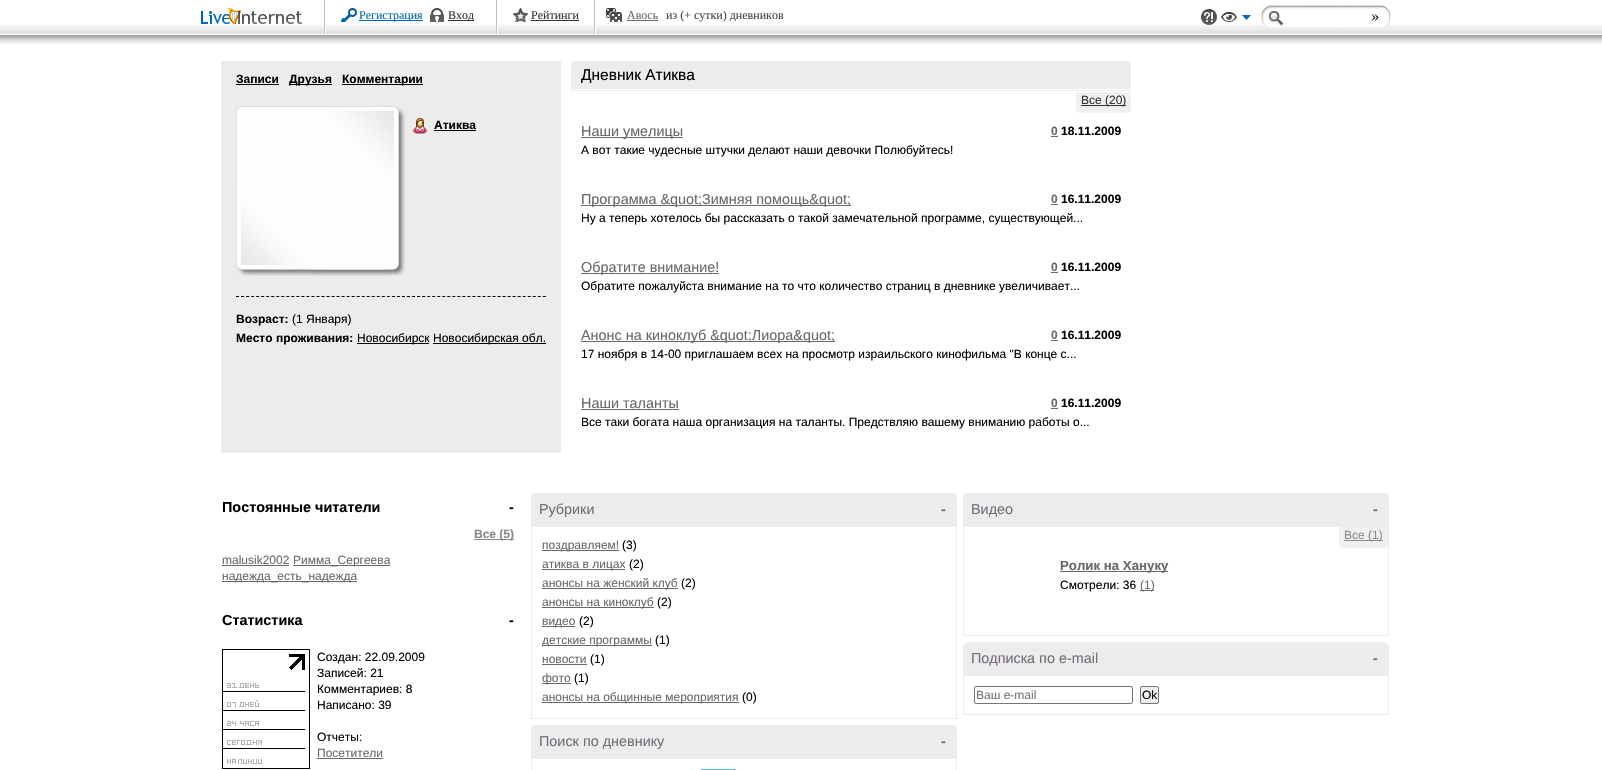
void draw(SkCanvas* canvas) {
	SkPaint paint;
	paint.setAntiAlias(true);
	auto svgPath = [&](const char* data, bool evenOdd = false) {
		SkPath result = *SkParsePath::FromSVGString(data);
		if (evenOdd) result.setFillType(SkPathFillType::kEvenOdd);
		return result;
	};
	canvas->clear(0xffffffff);
	canvas->drawImageRect(SkImages::DeferredFromEncodedData(SkData::MakeFromFileName("img1.png")), SkRect::MakeXYWH(0, 24, 1602, 20), SkSamplingOptions());
	canvas->drawImageRect(SkImages::DeferredFromEncodedData(SkData::MakeFromFileName("img2.png")), SkRect::MakeXYWH(201, 8, 101, 16), SkSamplingOptions());
	canvas->drawImageRect(SkImages::DeferredFromEncodedData(SkData::MakeFromFileName("img3.png")), SkRect::MakeXYWH(324, 0, 2, 34), SkSamplingOptions());
	canvas->drawImageRect(SkImages::DeferredFromEncodedData(SkData::MakeFromFileName("img4.png")), SkRect::MakeXYWH(341, 8, 16, 14), SkSamplingOptions());
	paint.setColor(0xff0067b4);
	canvas->drawRect(SkRect::MakeXYWH(359, 20, 64, 1), paint);
	SkFont f1(fontMgr->matchFamilyStyle("Liberation Serif", SkFontStyle::Normal()), 12);
	f1.setSubpixel(true);
	canvas->drawString("Регистрация", 359, 19, f1, paint);
	canvas->drawImageRect(SkImages::DeferredFromEncodedData(SkData::MakeFromFileName("img5.png")), SkRect::MakeXYWH(430, 8, 14, 14), SkSamplingOptions());
	paint.setColor(0xff333333);
	canvas->drawRect(SkRect::MakeXYWH(448, 20, 26, 1), paint);
	canvas->drawString("Вход", 448, 19, f1, paint);
	canvas->drawImageRect(SkImages::DeferredFromEncodedData(SkData::MakeFromFileName("img3.png")), SkRect::MakeXYWH(496, 0, 2, 34), SkSamplingOptions());
	canvas->drawImageRect(SkImages::DeferredFromEncodedData(SkData::MakeFromFileName("img6.png")), SkRect::MakeXYWH(513, 8, 15, 14), SkSamplingOptions());
	canvas->drawString("Рейтинги", 531, 19, f1, paint);
	canvas->drawRect(SkRect::MakeXYWH(531, 20, 48, 1), paint);
	canvas->drawImageRect(SkImages::DeferredFromEncodedData(SkData::MakeFromFileName("img3.png")), SkRect::MakeXYWH(594, 0, 2, 34), SkSamplingOptions());
	canvas->drawImageRect(SkImages::DeferredFromEncodedData(SkData::MakeFromFileName("img7.png")), SkRect::MakeXYWH(606, 8, 16, 14), SkSamplingOptions());
	paint.setColor(0xff696969);
	canvas->drawString("Авось", 627, 19, f1, paint);
	paint.setColor(0xff6e6e6e);
	canvas->drawRect(SkRect::MakeXYWH(627, 20, 31, 1), paint);
	paint.setColor(0xff444444);
	canvas->drawString("из (+ сутки) дневников", 666, 19, f1, paint);
	canvas->drawImageRect(SkImages::DeferredFromEncodedData(SkData::MakeFromFileName("img8.png")), SkRect::MakeXYWH(1201, 9, 16, 16), SkSamplingOptions());
	canvas->drawImageRect(SkImages::DeferredFromEncodedData(SkData::MakeFromFileName("img9.png")), SkRect::MakeXYWH(1221, 12, 30, 10), SkSamplingOptions());
	canvas->drawImageRect(SkImages::DeferredFromEncodedData(SkData::MakeFromFileName("img10.png")), SkRect::MakeXYWH(1261, 5, 110, 23), SkSamplingOptions());
	canvas->drawImageRect(SkImages::DeferredFromEncodedData(SkData::MakeFromFileName("img11.png")), SkRect::MakeXYWH(1371, 5, 20, 23), SkSamplingOptions());
	paint.setColor(0xffececec);
	canvas->drawRect(SkRect::MakeXYWH(221, 61, 340, 392), paint);
	SkFont f2(fontMgr->matchFamilyStyle("Liberation Sans", SkFontStyle::Bold()), 12);
	f2.setSubpixel(true);
	paint.setColor(0xff000000);
	canvas->drawString("Записи", 236, 83, f2, paint);
	canvas->drawRect(SkRect::MakeXYWH(236, 84, 43, 1), paint);
	canvas->drawRect(SkRect::MakeXYWH(289, 84, 43, 1), paint);
	canvas->drawString("Друзья", 289, 83, f2, paint);
	canvas->drawRect(SkRect::MakeXYWH(342, 84, 81, 1), paint);
	canvas->drawString("Комментарии", 342, 83, f2, paint);
	canvas->drawImageRect(SkImages::DeferredFromEncodedData(SkData::MakeFromFileName("img12.png")), SkRect::MakeXYWH(236, 106, 169, 170), SkSamplingOptions());
	canvas->drawImageRect(SkImages::DeferredFromEncodedData(SkData::MakeFromFileName("img13.png")), SkRect::MakeXYWH(413, 118, 14, 16), SkSamplingOptions());
	canvas->drawString("Атиква", 434, 129, f2, paint);
	canvas->drawRect(SkRect::MakeXYWH(434, 130, 42, 1), paint);
	paint.setStroke(true);
	paint.setStrokeWidth(1);
	paint.setPathEffect(SkDashPathEffect::Make({{3, 2.03f}}, 0));
	canvas->drawPath(svgPath("M236 296.5H546"), paint);
	paint.setPathEffect(nullptr);
	paint.setStroke(false);
	canvas->drawString("Возраст:", 236, 323, f2, paint);
	SkFont f3(fontMgr->matchFamilyStyle("Liberation Sans", SkFontStyle::Normal()), 12);
	f3.setSubpixel(true);
	canvas->drawString("(1 Января)", 292, 323, f3, paint);
	canvas->drawString("Место проживания:", 236, 342, f2, paint);
	canvas->drawRect(SkRect::MakeXYWH(357, 343, 72, 1), paint);
	canvas->drawString("Новосибирск", 357, 342, f3, paint);
	canvas->drawRect(SkRect::MakeXYWH(433, 343, 113, 1), paint);
	canvas->drawString("Новосибирская обл.", 433, 342, f3, paint);
	paint.setColor(0xffececec);
	canvas->drawPath(svgPath("M576 61H1126C1129 61 1131 63 1131 66V89H571V66C571 63 573 61 576 61Z"), paint);
	SkFont f4(fontMgr->matchFamilyStyle("Liberation Sans", SkFontStyle::Normal()), 15.5);
	f4.setSubpixel(true);
	paint.setColor(0xff000000);
	canvas->drawString("Дневник Атиква", 581, 80, f4, paint);
	paint.setColor(0xffececec);
	canvas->drawRect(SkRect::MakeXYWH(571, 90, 560, 1), paint);
	paint.setColor(0xfff0f0f0);
	canvas->drawPath(svgPath("M1076 92H1131V108C1131 111 1129 113 1126 113H1081C1078 113 1076 111 1076 108Z"), paint);
	paint.setColor(0xff333333);
	canvas->drawRect(SkRect::MakeXYWH(1081, 105, 45, 1), paint);
	canvas->drawString("Все (20)", 1081, 104, f3, paint);
	paint.setColor(0xff696969);
	canvas->drawRect(SkRect::MakeXYWH(581, 137, 102, 1), paint);
	SkFont f5(fontMgr->matchFamilyStyle("Liberation Sans", SkFontStyle::Normal()), 14.4);
	f5.setSubpixel(true);
	canvas->drawString("Наши умелицы", 581, 136, f5, paint);
	canvas->drawString("0", 1051, 135, f2, paint);
	canvas->drawRect(SkRect::MakeXYWH(1051, 136, 7, 1), paint);
	paint.setColor(0xff000000);
	canvas->drawString("18.11.2009", 1061, 135, f2, paint);
	canvas->drawString("А вот такие чудесные штучки делают наши девочки Полюбуйтесь!", 581, 154, f3, paint);
	paint.setColor(0xff696969);
	canvas->drawRect(SkRect::MakeXYWH(581, 205, 270, 1), paint);
	canvas->drawString("Программа &quot;Зимняя помощь&quot;", 581, 204, f5, paint);
	canvas->drawString("0", 1051, 203, f2, paint);
	canvas->drawRect(SkRect::MakeXYWH(1051, 204, 7, 1), paint);
	paint.setColor(0xff000000);
	canvas->drawString("16.11.2009", 1061, 203, f2, paint);
	canvas->drawString("Ну а теперь хотелось бы рассказать о такой замечательной программе, существующей...", 581, 222, f3, paint);
	paint.setColor(0xff696969);
	canvas->drawRect(SkRect::MakeXYWH(581, 273, 138, 1), paint);
	canvas->drawString("Обратите внимание!", 581, 272, f5, paint);
	canvas->drawString("0", 1051, 271, f2, paint);
	canvas->drawRect(SkRect::MakeXYWH(1051, 272, 7, 1), paint);
	paint.setColor(0xff000000);
	canvas->drawString("16.11.2009", 1061, 271, f2, paint);
	canvas->drawString("Обратите пожалуйста внимание на то что количество страниц в дневнике увеличивает...", 581, 290, f3, paint);
	paint.setColor(0xff696969);
	canvas->drawRect(SkRect::MakeXYWH(581, 341, 254, 1), paint);
	canvas->drawString("Анонс на киноклуб &quot;Лиора&quot;", 581, 340, f5, paint);
	canvas->drawString("0", 1051, 339, f2, paint);
	canvas->drawRect(SkRect::MakeXYWH(1051, 340, 7, 1), paint);
	paint.setColor(0xff000000);
	canvas->drawString("16.11.2009", 1061, 339, f2, paint);
	canvas->drawString("17 ноября в 14-00 приглашаем всех на просмотр израильского кинофильма \"В конце с...", 581, 358, f3, paint);
	paint.setColor(0xff696969);
	canvas->drawString("Наши таланты", 581, 408, f5, paint);
	canvas->drawRect(SkRect::MakeXYWH(581, 409, 98, 1), paint);
	canvas->drawString("0", 1051, 407, f2, paint);
	canvas->drawRect(SkRect::MakeXYWH(1051, 408, 7, 1), paint);
	paint.setColor(0xff000000);
	canvas->drawString("16.11.2009", 1061, 407, f2, paint);
	canvas->drawString("Все таки богата наша организация на таланты. Предствляю вашему вниманию работы о...", 581, 426, f3, paint);
	SkFont f6(fontMgr->matchFamilyStyle("Liberation Sans", SkFontStyle::Bold()), 14.4);
	f6.setSubpixel(true);
	canvas->drawString("Постоянные читатели", 222, 512, f6, paint);
	canvas->drawString("-", 509, 512, f6, paint);
	paint.setColor(0xff878787);
	canvas->drawRect(SkRect::MakeXYWH(474, 539, 40, 1), paint);
	canvas->drawString("Все (5)", 474, 538, f2, paint);
	paint.setColor(0xff696969);
	canvas->drawString("malusik2002", 222, 564, f3, paint);
	canvas->drawRect(SkRect::MakeXYWH(222, 565, 67, 1), paint);
	canvas->drawRect(SkRect::MakeXYWH(293, 565, 97, 1), paint);
	canvas->drawString("Римма_Сергеева", 293, 564, f3, paint);
	canvas->drawRect(SkRect::MakeXYWH(222, 581, 135, 1), paint);
	canvas->drawString("надежда_есть_надежда", 222, 580, f3, paint);
	paint.setColor(0xff000000);
	canvas->drawString("Статистика", 222, 625, f6, paint);
	canvas->drawString("-", 509, 625, f6, paint);
	canvas->drawImageRect(SkImages::DeferredFromEncodedData(SkData::MakeFromFileName("img14.png")), SkRect::MakeXYWH(222, 649, 88, 120), SkSamplingOptions());
	canvas->drawString("Создан: 22.09.2009", 317, 661, f3, paint);
	canvas->drawString("Записей: 21", 317, 677, f3, paint);
	canvas->drawString("Комментариев: 8", 317, 693, f3, paint);
	canvas->drawString("Написано: 39", 317, 709, f3, paint);
	canvas->drawString("Отчеты:", 317, 741, f3, paint);
	paint.setColor(0xff696969);
	canvas->drawString("Посетители", 317, 757, f3, paint);
	canvas->drawRect(SkRect::MakeXYWH(317, 758, 66, 1), paint);
	paint.setStroke(true);
	paint.setColor(0xffececec);
	canvas->drawPath(svgPath("M536 493.5H952C954.5 493.5 956.5 495.5 956.5 498V718.5H531.5V498C531.5 495.5 533.5 493.5 536 493.5Z"), paint);
	paint.setStroke(false);
	canvas->drawPath(svgPath("M536 494H952C954 494 956 496 956 498V527H532V498C532 496 534 494 536 494Z"), paint);
	paint.setColor(0xff736a75);
	canvas->drawString("Рубрики", 539, 514, f5, paint);
	canvas->drawString("-", 941, 514, f6, paint);
	canvas->drawImageRect(SkImages::DeferredFromEncodedData(SkData::MakeFromFileName("img15.png")), SkRect::MakeXYWH(540, 503, 53, 14), SkSamplingOptions());
	paint.setColor(0xff696969);
	canvas->drawRect(SkRect::MakeXYWH(542, 550, 77, 1), paint);
	canvas->drawString("поздравляем!", 542, 549, f3, paint);
	paint.setColor(0xff000000);
	canvas->drawString("(3)", 622, 549, f3, paint);
	paint.setColor(0xff696969);
	canvas->drawRect(SkRect::MakeXYWH(542, 569, 83, 1), paint);
	canvas->drawString("атиква в лицах", 542, 568, f3, paint);
	paint.setColor(0xff000000);
	canvas->drawString("(2)", 629, 568, f3, paint);
	paint.setColor(0xff696969);
	canvas->drawRect(SkRect::MakeXYWH(542, 588, 136, 1), paint);
	canvas->drawString("анонсы на женский клуб", 542, 587, f3, paint);
	paint.setColor(0xff000000);
	canvas->drawString("(2)", 681, 587, f3, paint);
	paint.setColor(0xff696969);
	canvas->drawRect(SkRect::MakeXYWH(542, 607, 112, 1), paint);
	canvas->drawString("анонсы на киноклуб", 542, 606, f3, paint);
	paint.setColor(0xff000000);
	canvas->drawString("(2)", 657, 606, f3, paint);
	paint.setColor(0xff696969);
	canvas->drawRect(SkRect::MakeXYWH(542, 626, 33, 1), paint);
	canvas->drawString("видео", 542, 625, f3, paint);
	paint.setColor(0xff000000);
	canvas->drawString("(2)", 579, 625, f3, paint);
	paint.setColor(0xff696969);
	canvas->drawRect(SkRect::MakeXYWH(542, 645, 110, 1), paint);
	canvas->drawString("детские программы", 542, 644, f3, paint);
	paint.setColor(0xff000000);
	canvas->drawString("(1)", 655, 644, f3, paint);
	paint.setColor(0xff696969);
	canvas->drawString("новости", 542, 663, f3, paint);
	canvas->drawRect(SkRect::MakeXYWH(542, 664, 45, 1), paint);
	paint.setColor(0xff000000);
	canvas->drawString("(1)", 590, 663, f3, paint);
	paint.setColor(0xff696969);
	canvas->drawRect(SkRect::MakeXYWH(542, 683, 29, 1), paint);
	canvas->drawString("фото", 542, 682, f3, paint);
	paint.setColor(0xff000000);
	canvas->drawString("(1)", 574, 682, f3, paint);
	paint.setColor(0xff696969);
	canvas->drawRect(SkRect::MakeXYWH(542, 702, 197, 1), paint);
	canvas->drawString("анонсы на общинные мероприятия", 542, 701, f3, paint);
	paint.setColor(0xff000000);
	canvas->drawString("(0)", 742, 701, f3, paint);
	paint.setStroke(true);
	paint.setColor(0xffececec);
	canvas->drawPath(svgPath("M536 725.5H952C954.5 725.5 956.5 727.5 956.5 730V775.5H531.5V730C531.5 727.5 533.5 725.5 536 725.5Z"), paint);
	paint.setStroke(false);
	canvas->drawPath(svgPath("M536 726H952C954 726 956 728 956 730V759H532V730C532 728 534 726 536 726Z"), paint);
	paint.setColor(0xff736a75);
	canvas->drawString("Поиск по дневнику", 539, 746, f5, paint);
	canvas->drawString("-", 941, 746, f6, paint);
	canvas->drawImageRect(SkImages::DeferredFromEncodedData(SkData::MakeFromFileName("img16.png")), SkRect::MakeXYWH(540, 736, 124, 13), SkSamplingOptions());
	canvas->drawImageRect(SkImages::DeferredFromEncodedData(SkData::MakeFromFileName("img17.png")), SkRect::MakeXYWH(701, 769, 35, 1), SkSamplingOptions());
	paint.setStroke(true);
	paint.setColor(0xffececec);
	canvas->drawPath(svgPath("M968 493.5H1384C1386.5 493.5 1388.5 495.5 1388.5 498V635.5H963.5V498C963.5 495.5 965.5 493.5 968 493.5Z"), paint);
	paint.setStroke(false);
	canvas->drawPath(svgPath("M968 494H1384C1386 494 1388 496 1388 498V527H964V498C964 496 966 494 968 494Z"), paint);
	paint.setColor(0xff736a75);
	canvas->drawString("Видео", 971, 514, f5, paint);
	canvas->drawString("-", 1373, 514, f6, paint);
	canvas->drawImageRect(SkImages::DeferredFromEncodedData(SkData::MakeFromFileName("img18.png")), SkRect::MakeXYWH(972, 504, 40, 13), SkSamplingOptions());
	paint.setColor(0xfff0f0f0);
	canvas->drawPath(svgPath("M1339 527H1388V543C1388 546 1386 548 1383 548H1344C1341 548 1339 546 1339 543Z"), paint);
	paint.setColor(0xff8f8891);
	canvas->drawRect(SkRect::MakeXYWH(1344, 540, 39, 1), paint);
	canvas->drawString("Все (1)", 1344, 539, f3, paint);
	paint.setColor(0xff696969);
	canvas->drawRect(SkRect::MakeXYWH(1060, 571, 108, 1), paint);
	SkFont f7(fontMgr->matchFamilyStyle("Liberation Sans", SkFontStyle::Bold()), 13.25);
	f7.setSubpixel(true);
	canvas->drawString("Ролик на Хануку", 1060, 570, f7, paint);
	paint.setColor(0xff000000);
	canvas->drawString("Смотрели: 36", 1060, 589, f3, paint);
	paint.setColor(0xff696969);
	canvas->drawRect(SkRect::MakeXYWH(1140, 590, 14, 1), paint);
	canvas->drawString("(1)", 1140, 589, f3, paint);
	paint.setStroke(true);
	paint.setColor(0xffececec);
	canvas->drawPath(svgPath("M968 642.5H1384C1386.5 642.5 1388.5 644.5 1388.5 647V714.5H963.5V647C963.5 644.5 965.5 642.5 968 642.5Z"), paint);
	paint.setStroke(false);
	canvas->drawPath(svgPath("M968 643H1384C1386 643 1388 645 1388 647V676H964V647C964 645 966 643 968 643Z"), paint);
	paint.setColor(0xff736a75);
	canvas->drawString("Подписка по e-mail", 971, 663, f5, paint);
	canvas->drawString("-", 1373, 663, f6, paint);
	canvas->drawImageRect(SkImages::DeferredFromEncodedData(SkData::MakeFromFileName("img19.png")), SkRect::MakeXYWH(972, 652, 125, 14), SkSamplingOptions());
	paint.setStroke(true);
	paint.setColor(0xff767676);
	canvas->drawRoundRect(SkRect::MakeXYWH(974.5, 686.5, 158, 17), 1.5, 1.5, paint);
	paint.setStroke(false);
	paint.setColor(0xff757575);
	canvas->drawString("Ваш e-mail", 976, 699, f3, paint);
	paint.setColor(0xffefefef);
	canvas->drawRoundRect(SkRect::MakeXYWH(1140.5, 686.5, 18, 17), 1.5, 1.5, paint);
	paint.setStroke(true);
	paint.setColor(0xff767676);
	canvas->drawRoundRect(SkRect::MakeXYWH(1140.5, 686.5, 18, 17), 1.5, 1.5, paint);
	paint.setStroke(false);
	paint.setColor(0xff000000);
	canvas->drawString("Ok", 1142, 699, f3, paint);
}
